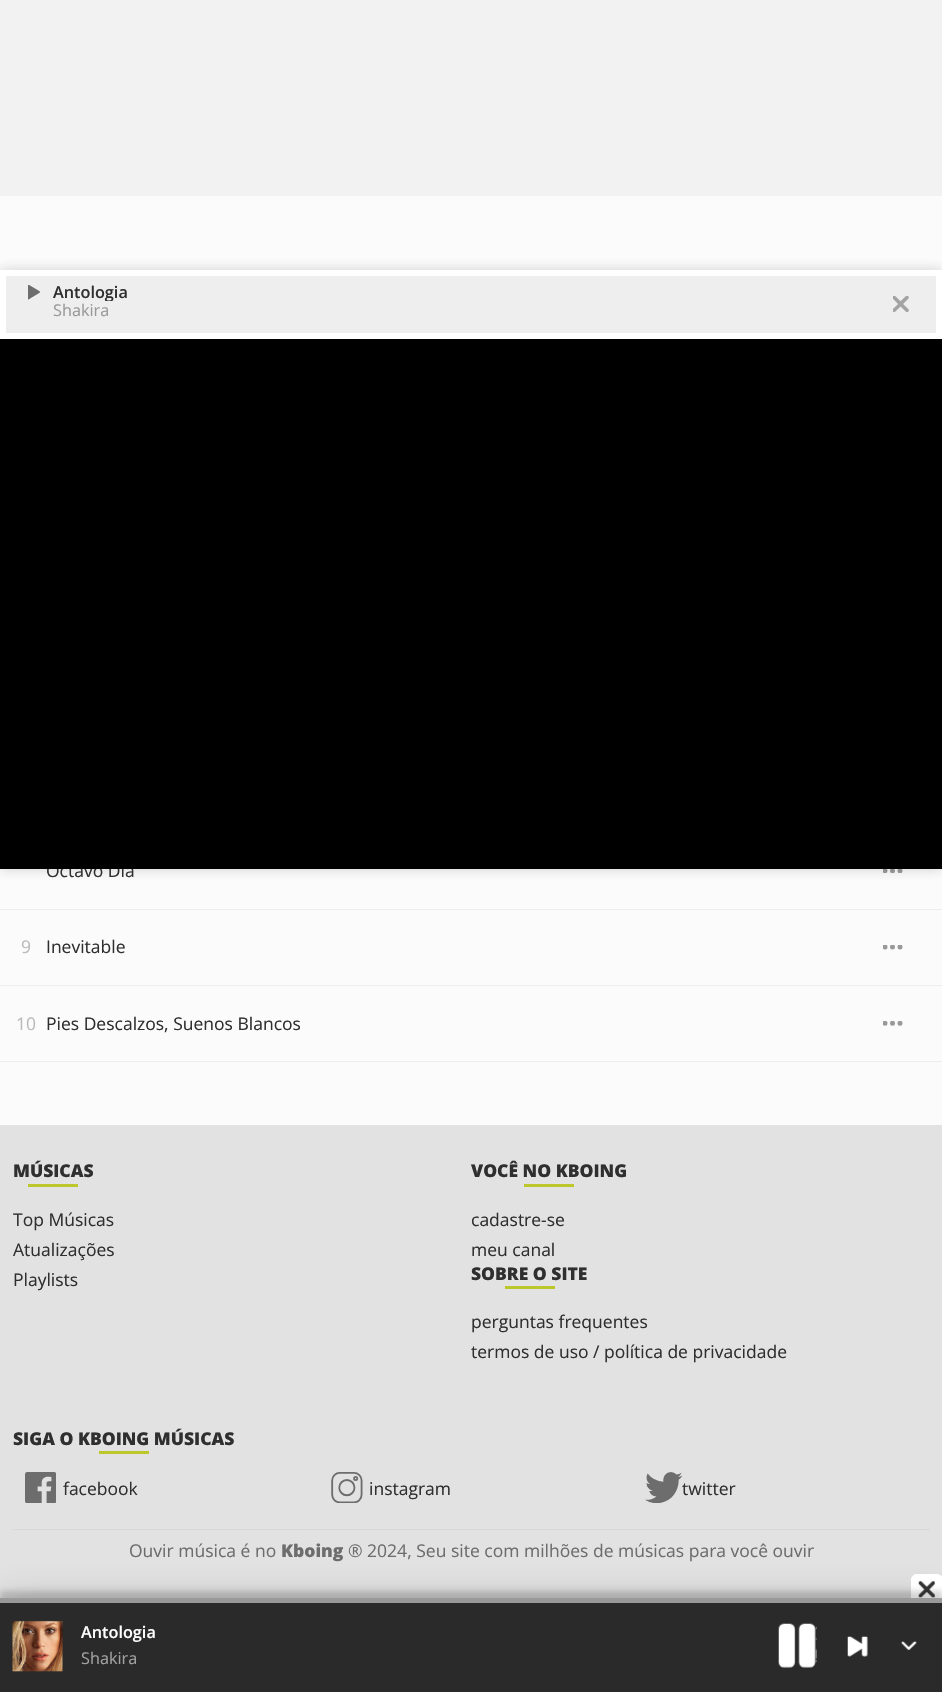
void draw(SkCanvas* canvas) {
	SkPaint paint;
	paint.setAntiAlias(true);
	auto svgPath = [&](const char* data, bool evenOdd = false) {
		SkPath result = *SkParsePath::FromSVGString(data);
		if (evenOdd) result.setFillType(SkPathFillType::kEvenOdd);
		return result;
	};
	canvas->clear(0xfffbfbfb);
	canvas->drawImageRect(SkImages::DeferredFromEncodedData(SkData::MakeFromFileName("img8.png")), SkRect::MakeXYWH(883, 869, 20, 4), SkSamplingOptions());
	paint.setColor(0x33212121);
	paint.setMaskFilter(SkMaskFilter::MakeBlur(kNormal_SkBlurStyle, 6));
	canvas->drawRect(SkRect::MakeXYWH(0, 270, 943, 599), paint);
	paint.setMaskFilter(nullptr);
	paint.setColor(0xffffffff);
	canvas->drawRect(SkRect::MakeXYWH(0, 270, 942, 69), paint);
	paint.setColor(0xffeeeeee);
	canvas->drawRect(SkRect::MakeXYWH(6, 276, 930, 57), paint);
	canvas->drawImageRect(SkImages::DeferredFromEncodedData(SkData::MakeFromFileName("img1.png")), SkRect::MakeXYWH(28, 285, 12, 15), SkSamplingOptions());
	canvas->save();
	canvas->clipRect(SkRect::MakeXYWH(19, 283, 860, 18));
	SkFont f1(fontMgr->matchFamilyStyle("Open Sans", SkFontStyle(600, SkFontStyle::kNormal_Width, SkFontStyle::kUpright_Slant)), 16.25);
	f1.setSubpixel(true);
	paint.setColor(0xff2f2f2f);
	canvas->drawString("Antologia", 53, 298, f1, paint);
	canvas->restore();
	SkFont f2(fontMgr->matchFamilyStyle("Open Sans", SkFontStyle::Normal()), 16.25);
	f2.setSubpixel(true);
	paint.setColor(0xff999999);
	canvas->drawString("Shakira", 53, 316, f2, paint);
	canvas->drawImageRect(SkImages::DeferredFromEncodedData(SkData::MakeFromFileName("img2.png")), SkRect::MakeXYWH(893, 296, 16, 16), SkSamplingOptions());
	SkFont f3(fontMgr->matchFamilyStyle("Open Sans", SkFontStyle::Normal()), 17.5);
	f3.setSubpixel(true);
	paint.setColor(0xff2f2f2f);
	canvas->drawString("Octavo Día", 46, 877, f3, paint);
	paint.setColor(0xff000000);
	canvas->drawRect(SkRect::MakeXYWH(0, 339, 942, 530), paint);
	paint.setColor(0xffe2e2e2);
	canvas->drawRect(SkRect::MakeXYWH(0, 1125, 942, 473), paint);
	paint.setColor(0x33212121);
	paint.setMaskFilter(SkMaskFilter::MakeBlur(kNormal_SkBlurStyle, 19));
	canvas->drawRect(SkRect::MakeXYWH(0, 1599, 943, 87), paint);
	paint.setMaskFilter(nullptr);
	paint.setColor(0xffffffff);
	canvas->drawPath(svgPath("M917 1574H937C940.5 1574 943 1576.5 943 1580V1605H911V1580C911 1576.5 913.5 1574 917 1574Z"), paint);
	canvas->drawImageRect(SkImages::DeferredFromEncodedData(SkData::MakeFromFileName("img3.png")), SkRect::MakeXYWH(918, 1581, 17, 17), SkSamplingOptions());
	paint.setColor(0x33212121);
	paint.setMaskFilter(SkMaskFilter::MakeBlur(kNormal_SkBlurStyle, 3));
	canvas->drawRect(SkRect::MakeXYWH(0, 1591, 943, 95), paint);
	paint.setMaskFilter(nullptr);
	paint.setColor(0xff2a2a2a);
	canvas->drawRect(SkRect::MakeXYWH(0, 1603, 942, 89), paint);
	paint.setColor(0xff999999);
	canvas->drawRect(SkRect::MakeXYWH(0, 1598, 942, 5), paint);
	canvas->drawImageRect(SkImages::DeferredFromEncodedData(SkData::MakeFromFileName("img4.png")), SkRect::MakeXYWH(778, 1623, 39, 45), SkSamplingOptions());
	canvas->drawImageRect(SkImages::DeferredFromEncodedData(SkData::MakeFromFileName("img5.png")), SkRect::MakeXYWH(847, 1636, 21, 21), SkSamplingOptions());
	canvas->drawImageRect(SkImages::DeferredFromEncodedData(SkData::MakeFromFileName("img6.png")), SkRect::MakeXYWH(12, 1620, 51, 52), SkSamplingOptions());
	paint.setColor(0xffffffff);
	canvas->drawString("Antologia", 81, 1638, f1, paint);
	paint.setColor(0xffa2a2a2);
	canvas->drawString("Shakira", 81, 1664, f2, paint);
	canvas->drawImageRect(SkImages::DeferredFromEncodedData(SkData::MakeFromFileName("img7.png")), SkRect::MakeXYWH(901, 1641, 16, 9), SkSamplingOptions());
	paint.setColor(0xfff2f2f2);
	canvas->drawRect(SkRect::MakeXYWH(0, 0, 942, 196), paint);
	paint.setColor(0xffeeeeee);
	canvas->drawRect(SkRect::MakeXYWH(0, 909, 942, 1), paint);
	canvas->drawRect(SkRect::MakeXYWH(0, 985, 942, 1), paint);
	paint.setColor(0xffbbbbbb);
	canvas->drawString("9", 21, 953, f3, paint);
	paint.setColor(0xff2f2f2f);
	canvas->drawString("Inevitable", 46, 953, f3, paint);
	canvas->drawImageRect(SkImages::DeferredFromEncodedData(SkData::MakeFromFileName("img9.png")), SkRect::MakeXYWH(883, 945, 20, 5), SkSamplingOptions());
	paint.setColor(0xffeeeeee);
	canvas->drawRect(SkRect::MakeXYWH(0, 1061, 942, 1), paint);
	paint.setColor(0xffbbbbbb);
	canvas->drawString("10", 16, 1030, f3, paint);
	paint.setColor(0xff2f2f2f);
	canvas->drawString("Pies Descalzos, Suenos Blancos", 46, 1030, f3, paint);
	canvas->drawImageRect(SkImages::DeferredFromEncodedData(SkData::MakeFromFileName("img10.png")), SkRect::MakeXYWH(883, 1021, 20, 5), SkSamplingOptions());
	paint.setColor(0xffd8d8d8);
	canvas->drawRect(SkRect::MakeXYWH(13, 1529, 917, 1), paint);
	SkFont f4(fontMgr->matchFamilyStyle("Open Sans", SkFontStyle(800, SkFontStyle::kNormal_Width, SkFontStyle::kUpright_Slant)), 17.5);
	f4.setSubpixel(true);
	paint.setColor(0xff2f2f2f);
	canvas->drawString("MÚSICAS", 13, 1177, f4, paint);
	paint.setColor(0xffbcc72c);
	canvas->drawRect(SkRect::MakeXYWH(28, 1184, 50, 3), paint);
	paint.setColor(0xff2f2f2f);
	canvas->drawString("Top Músicas", 13, 1226, f3, paint);
	canvas->drawString("Atualizações", 13, 1256, f3, paint);
	canvas->drawString("Playlists", 13, 1286, f3, paint);
	canvas->drawString("VOCÊ NO KBOING", 471, 1177, f4, paint);
	paint.setColor(0xffbcc72c);
	canvas->drawRect(SkRect::MakeXYWH(524, 1184, 50, 3), paint);
	paint.setColor(0xff2f2f2f);
	canvas->drawString("cadastre-se", 471, 1226, f3, paint);
	canvas->drawString("meu canal", 471, 1256, f3, paint);
	canvas->drawString("SOBRE O SITE", 471, 1280, f4, paint);
	paint.setColor(0xffbcc72c);
	canvas->drawRect(SkRect::MakeXYWH(505, 1286, 50, 3), paint);
	paint.setColor(0xff2f2f2f);
	canvas->drawString("perguntas frequentes", 471, 1328, f3, paint);
	canvas->drawString("termos de uso / política de privacidade", 471, 1358, f3, paint);
	canvas->drawString("SIGA O KBOING MÚSICAS", 13, 1445, f4, paint);
	paint.setColor(0xffbcc72c);
	canvas->drawRect(SkRect::MakeXYWH(99, 1451, 50, 3), paint);
	canvas->drawImageRect(SkImages::DeferredFromEncodedData(SkData::MakeFromFileName("img11.png")), SkRect::MakeXYWH(25, 1472, 31, 31), SkSamplingOptions());
	paint.setColor(0xff2f2f2f);
	canvas->drawString("facebook", 63, 1495, f3, paint);
	canvas->drawImageRect(SkImages::DeferredFromEncodedData(SkData::MakeFromFileName("img12.png")), SkRect::MakeXYWH(331, 1472, 32, 31), SkSamplingOptions());
	canvas->drawString("instagram", 369, 1495, f3, paint);
	canvas->drawString("twitter", 682, 1495, f3, paint);
	canvas->drawImageRect(SkImages::DeferredFromEncodedData(SkData::MakeFromFileName("img13.png")), SkRect::MakeXYWH(645, 1472, 38, 31), SkSamplingOptions());
	paint.setColor(0xff6d6d6d);
	canvas->drawString("Ouvir música é no", 129, 1557, f3, paint);
	canvas->drawString("Kboing", 281, 1557, f4, paint);
	canvas->drawString("® 2024, Seu site com milhões de músicas para você ouvir", 348, 1557, f3, paint);
}
